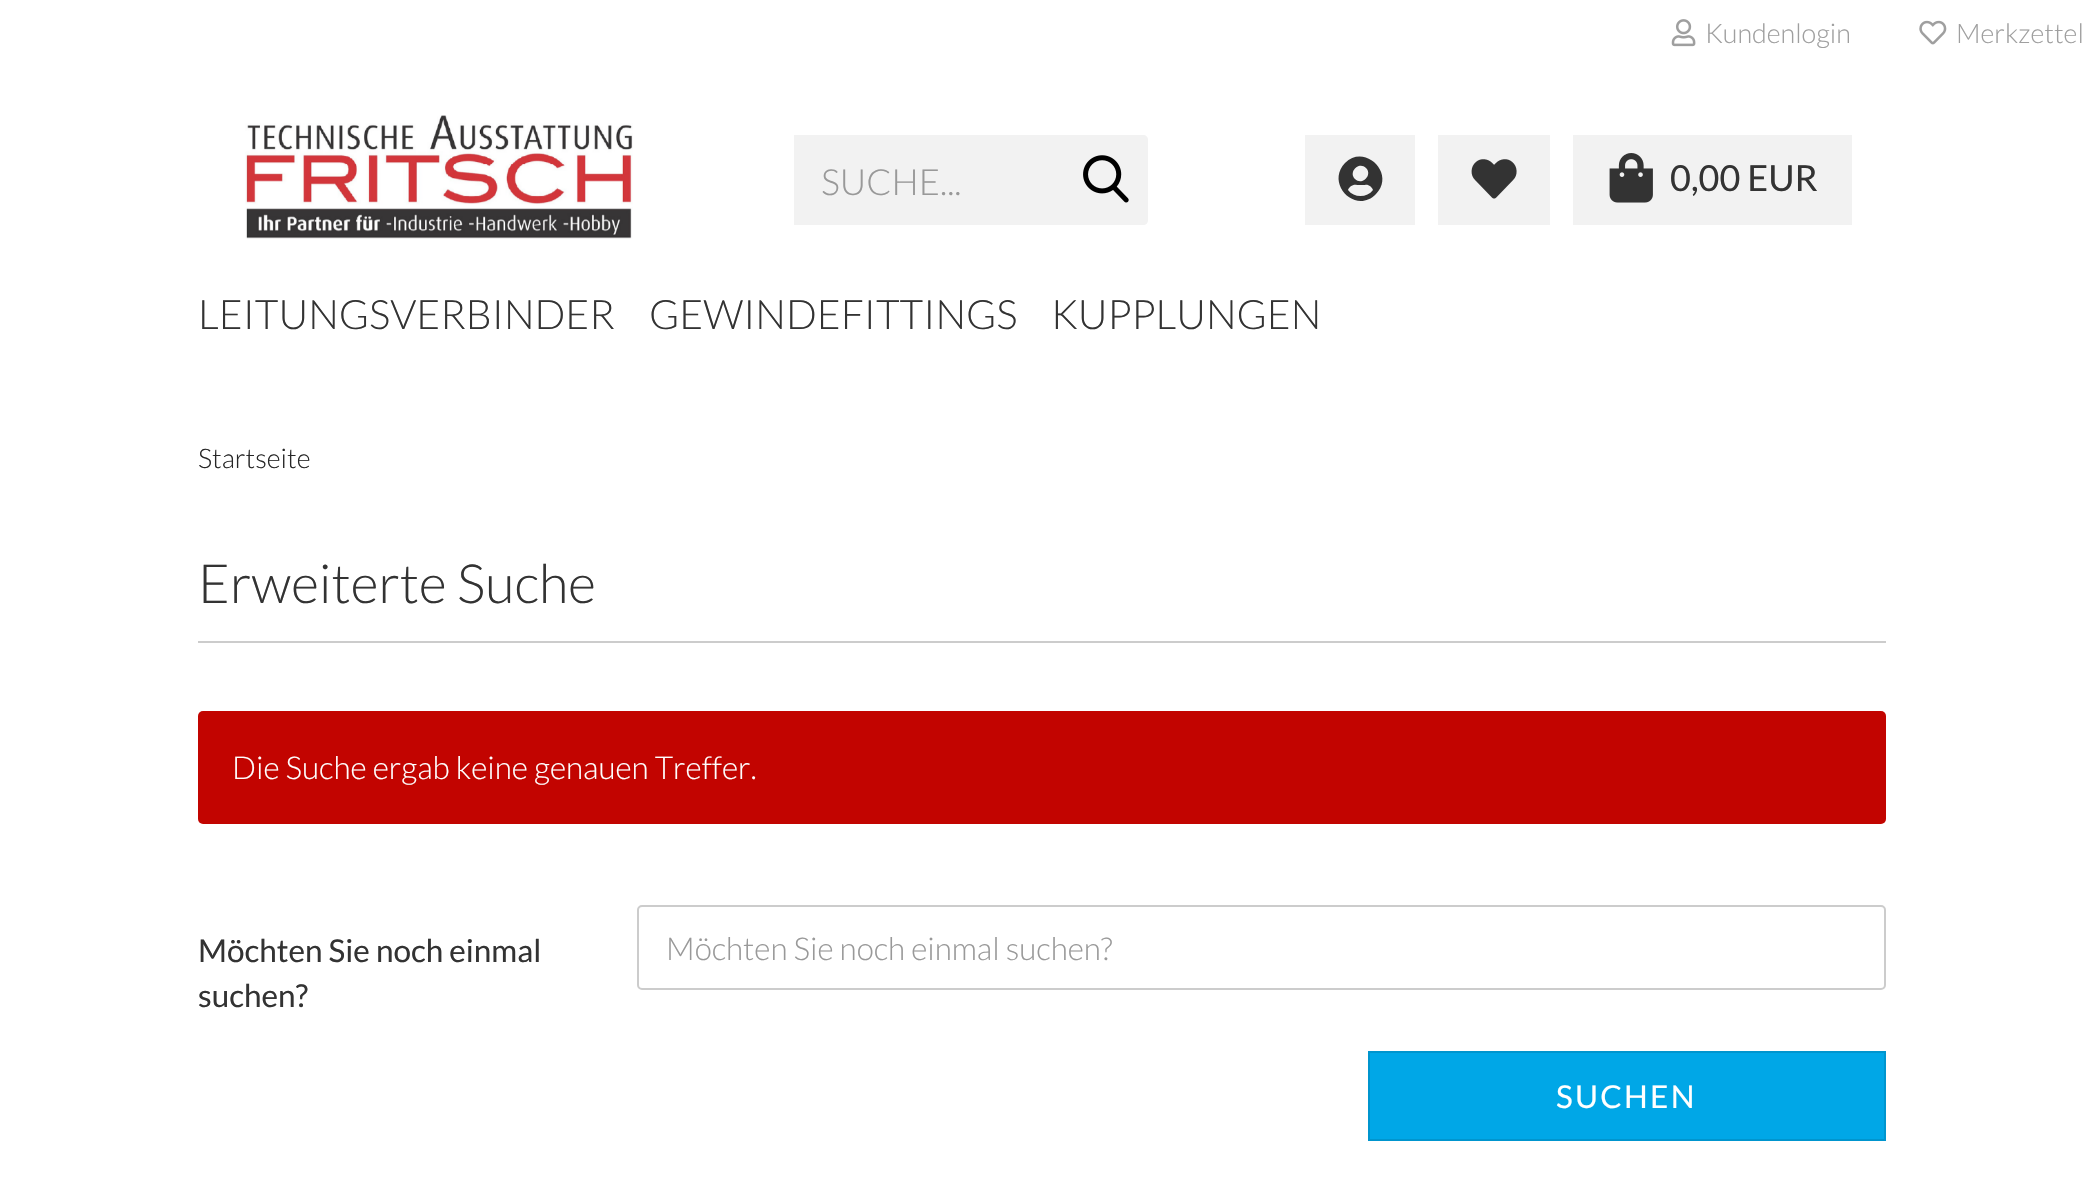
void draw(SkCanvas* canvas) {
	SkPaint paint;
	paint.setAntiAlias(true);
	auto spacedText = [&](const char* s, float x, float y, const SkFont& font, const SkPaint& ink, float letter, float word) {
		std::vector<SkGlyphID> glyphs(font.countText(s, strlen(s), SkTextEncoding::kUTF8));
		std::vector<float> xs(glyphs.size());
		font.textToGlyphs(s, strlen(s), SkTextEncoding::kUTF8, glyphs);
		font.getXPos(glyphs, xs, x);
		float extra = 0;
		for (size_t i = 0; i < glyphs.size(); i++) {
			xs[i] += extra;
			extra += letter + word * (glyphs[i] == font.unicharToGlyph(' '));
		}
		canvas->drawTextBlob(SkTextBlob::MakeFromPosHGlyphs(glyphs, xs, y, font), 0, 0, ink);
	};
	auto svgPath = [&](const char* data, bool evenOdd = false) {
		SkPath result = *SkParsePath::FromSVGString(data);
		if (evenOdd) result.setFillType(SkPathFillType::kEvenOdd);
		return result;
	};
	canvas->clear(0xffffffff);
	canvas->drawImageRect(SkImages::DeferredFromEncodedData(SkData::MakeFromFileName("img1.png")), SkRect::MakeXYWH(1671, 19, 25, 28), SkSamplingOptions());
	SkFont f1(fontMgr->matchFamilyStyle("Lato", SkFontStyle(300, SkFontStyle::kNormal_Width, SkFontStyle::kUpright_Slant)), 27);
	f1.setSubpixel(true);
	paint.setColor(0xff9f9f9f);
	canvas->drawString("Kundenlogin", 1705, 43, f1, paint);
	canvas->drawImageRect(SkImages::DeferredFromEncodedData(SkData::MakeFromFileName("img2.png")), SkRect::MakeXYWH(1919, 20, 28, 25), SkSamplingOptions());
	canvas->drawString("Merkzettel", 1956, 43, f1, paint);
	canvas->drawImageRect(SkImages::DeferredFromEncodedData(SkData::MakeFromFileName("img3.png")), SkRect::MakeXYWH(245, 115, 388, 124), SkSamplingOptions());
	paint.setColor(0xfff2f2f2);
	canvas->drawPath(svgPath("M794 135H1143C1146 135 1148 137 1148 140V220C1148 223 1146 225 1143 225H794Z"), paint);
	SkFont f2(fontMgr->matchFamilyStyle("Lato", SkFontStyle(300, SkFontStyle::kNormal_Width, SkFontStyle::kUpright_Slant)), 36);
	f2.setSubpixel(true);
	paint.setColor(0xff999999);
	canvas->drawString("SUCHE...", 821, 195, f2, paint);
	canvas->drawImageRect(SkImages::DeferredFromEncodedData(SkData::MakeFromFileName("img4.png")), SkRect::MakeXYWH(1083, 155, 46, 48), SkSamplingOptions());
	paint.setColor(0xfff2f2f2);
	canvas->drawRect(SkRect::MakeXYWH(1305, 135, 110, 90), paint);
	paint.setColor(0xff333333);
	canvas->drawPath(svgPath("M1345 163C1365 143 1396 174 1376 194C1356 215 1325 184 1345 163ZM1366 168C1359 161 1348 172 1355 179C1362 186 1373 175 1366 168ZM1348 190C1354 198 1367 198 1373 190C1372 187 1368 184 1365 185H1361H1357C1353 184 1349 187 1348 190Z"), paint);
	paint.setColor(0xfff2f2f2);
	canvas->drawRect(SkRect::MakeXYWH(1438, 135, 112, 90), paint);
	canvas->drawImageRect(SkImages::DeferredFromEncodedData(SkData::MakeFromFileName("img5.png")), SkRect::MakeXYWH(1471, 159, 46, 40), SkSamplingOptions());
	canvas->drawRect(SkRect::MakeXYWH(1573, 135, 279, 90), paint);
	canvas->drawImageRect(SkImages::DeferredFromEncodedData(SkData::MakeFromFileName("img6.png")), SkRect::MakeXYWH(1609, 153, 44, 50), SkSamplingOptions());
	SkFont f3(fontMgr->matchFamilyStyle("Lato", SkFontStyle::Normal()), 36);
	f3.setSubpixel(true);
	paint.setColor(0xff333333);
	canvas->drawString("0,00 EUR", 1670, 191, f3, paint);
	SkFont f4(fontMgr->matchFamilyStyle("Lato", SkFontStyle(300, SkFontStyle::kNormal_Width, SkFontStyle::kUpright_Slant)), 40.5);
	f4.setSubpixel(true);
	canvas->drawString("LEITUNGSVERBINDER", 198, 329, f4, paint);
	canvas->drawString("GEWINDEFITTINGS", 649, 329, f4, paint);
	canvas->drawString("KUPPLUNGEN", 1051, 329, f4, paint);
	paint.setColor(0xff262626);
	canvas->drawString("Startseite", 198, 468, f1, paint);
	paint.setColor(0xffcccccc);
	canvas->drawRect(SkRect::MakeXYWH(198, 641, 1688, 2), paint);
	SkFont f5(fontMgr->matchFamilyStyle("Lato", SkFontStyle(300, SkFontStyle::kNormal_Width, SkFontStyle::kUpright_Slant)), 54);
	f5.setSubpixel(true);
	paint.setColor(0xff333333);
	canvas->drawString("Erweiterte Suche", 198, 603, f5, paint);
	paint.setColor(0xffc20400);
	canvas->drawRoundRect(SkRect::MakeXYWH(198, 711, 1688, 113), 5, 5, paint);
	SkFont f6(fontMgr->matchFamilyStyle("Lato", SkFontStyle(300, SkFontStyle::kNormal_Width, SkFontStyle::kUpright_Slant)), 31.5);
	f6.setSubpixel(true);
	paint.setColor(0xffffffff);
	canvas->drawString("Die Suche ergab keine genauen Treffer.", 232, 779, f6, paint);
	SkFont f7(fontMgr->matchFamilyStyle("Lato", SkFontStyle::Normal()), 31.5);
	f7.setSubpixel(true);
	paint.setColor(0xff333333);
	canvas->drawString("Möchten Sie noch einmal", 198, 962, f7, paint);
	canvas->drawString("suchen?", 198, 1007, f7, paint);
	paint.setStroke(true);
	paint.setStrokeWidth(2);
	paint.setColor(0xffcccccc);
	canvas->drawRoundRect(SkRect::MakeXYWH(638, 906, 1247, 83), 4, 4, paint);
	paint.setStroke(false);
	paint.setColor(0xff999999);
	canvas->drawString("Möchten Sie noch einmal suchen?", 666, 960, f6, paint);
	paint.setColor(0xff00a7e7);
	canvas->drawRect(SkRect::MakeXYWH(1369, 1052, 516, 88), paint);
	paint.setStroke(true);
	paint.setColor(0xff0095ce);
	canvas->drawRect(SkRect::MakeXYWH(1369, 1052, 516, 88), paint);
	paint.setStroke(false);
	paint.setColor(0xffffffff);
	spacedText("SUCHEN", 1556, 1108, f7, paint, 2.25, 0);
}
